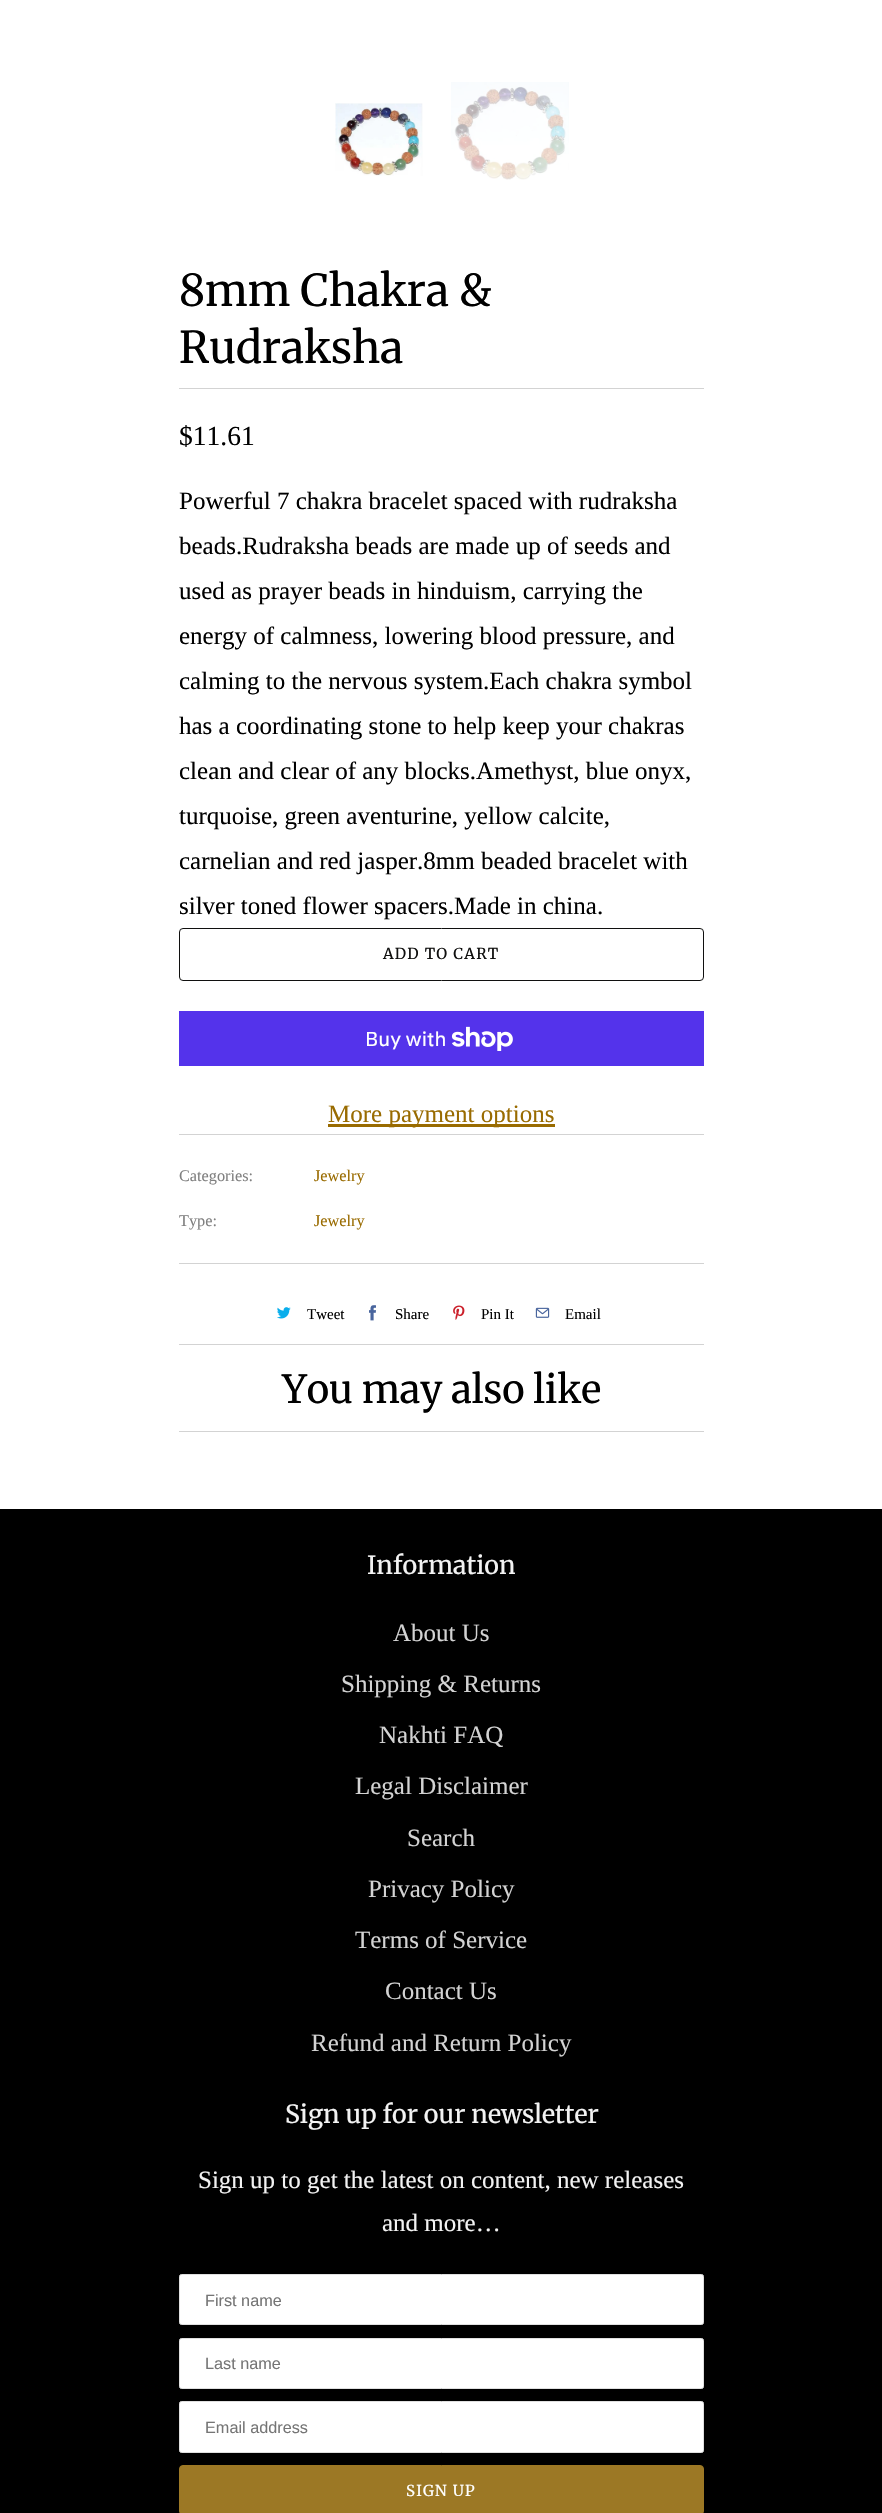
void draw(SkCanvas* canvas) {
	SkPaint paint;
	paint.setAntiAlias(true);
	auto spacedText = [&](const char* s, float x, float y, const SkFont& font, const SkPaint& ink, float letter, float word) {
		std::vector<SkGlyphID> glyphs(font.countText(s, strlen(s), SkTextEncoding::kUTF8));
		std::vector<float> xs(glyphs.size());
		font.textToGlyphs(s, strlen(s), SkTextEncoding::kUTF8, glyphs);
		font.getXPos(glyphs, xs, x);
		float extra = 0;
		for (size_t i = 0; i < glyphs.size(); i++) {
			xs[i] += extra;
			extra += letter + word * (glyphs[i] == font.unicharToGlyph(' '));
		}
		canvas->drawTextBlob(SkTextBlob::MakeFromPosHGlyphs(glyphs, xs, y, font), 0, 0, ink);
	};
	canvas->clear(0xffffffff);
	canvas->drawImageRect(SkImages::DeferredFromEncodedData(SkData::MakeFromFileName("img1.png")), SkRect::MakeXYWH(335, 103, 88, 73), SkSamplingOptions());
	canvas->drawImageRect(SkImages::DeferredFromEncodedData(SkData::MakeFromFileName("img2.png")), SkRect::MakeXYWH(451, 82, 118, 98), SkSamplingOptions());
	paint.setColor(0xffd3d3d3);
	canvas->drawRect(SkRect::MakeXYWH(179, 388, 525, 1), paint);
	SkFont f1(fontMgr->matchFamilyStyle("Merriweather", SkFontStyle::Normal()), 43.75);
	f1.setSubpixel(true);
	paint.setColor(0xff000000);
	canvas->drawString("8mm Chakra &", 179, 306, f1, paint);
	canvas->drawString("Rudraksha", 179, 363, f1, paint);
	SkFont f2(fontMgr->matchFamilyStyle("Liberation Serif", SkFontStyle::Normal()), 27.5);
	f2.setSubpixel(true);
	canvas->drawString("$11.61", 179, 445, f2, paint);
	SkFont f3(fontMgr->matchFamilyStyle("Liberation Serif", SkFontStyle::Normal()), 25);
	f3.setSubpixel(true);
	canvas->drawString("Powerful 7 chakra bracelet spaced with rudraksha", 179, 509, f3, paint);
	canvas->drawString("beads.Rudraksha beads are made up of seeds and", 179, 554, f3, paint);
	canvas->drawString("used as prayer beads in hinduism, carrying the", 179, 599, f3, paint);
	canvas->drawString("energy of calmness, lowering blood pressure, and", 179, 644, f3, paint);
	canvas->drawString("calming to the nervous system.Each chakra symbol", 179, 689, f3, paint);
	canvas->drawString("has a coordinating stone to help keep your chakras", 179, 734, f3, paint);
	canvas->drawString("clean and clear of any blocks.Amethyst, blue onyx,", 179, 779, f3, paint);
	canvas->drawString("turquoise, green aventurine, yellow calcite,", 179, 824, f3, paint);
	canvas->drawString("carnelian and red jasper.8mm beaded bracelet with", 179, 869, f3, paint);
	canvas->drawString("silver toned flower spacers.Made in china.", 179, 914, f3, paint);
	paint.setStroke(true);
	paint.setStrokeWidth(1);
	paint.setColor(0xff10100f);
	canvas->drawRoundRect(SkRect::MakeXYWH(179.5, 928.5, 524, 52), 3.5, 3.5, paint);
	SkFont f4(fontMgr->matchFamilyStyle("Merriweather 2", SkFontStyle::Normal()), 15);
	f4.setSubpixel(true);
	paint.setStroke(false);
	spacedText("ADD TO CART", 383, 959, f4, paint, 1.25, 0);
	paint.setColor(0xff5433eb);
	canvas->drawRect(SkRect::MakeXYWH(179, 1011, 525, 55), paint);
	SkFont f5(fontMgr->matchFamilyStyle("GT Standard", SkFontStyle::Normal()), 20);
	f5.setSubpixel(true);
	paint.setColor(0xffffffff);
	canvas->drawString("Buy with", 365, 1046, f5, paint);
	canvas->drawImageRect(SkImages::DeferredFromEncodedData(SkData::MakeFromFileName("img3.png")), SkRect::MakeXYWH(451, 1026, 62, 25), SkSamplingOptions());
	paint.setColor(0xff996b00);
	canvas->drawRect(SkRect::MakeXYWH(328, 1124, 227, 3), paint);
	canvas->drawString("More payment options", 328, 1122, f3, paint);
	paint.setColor(0xffd3d3d3);
	canvas->drawRect(SkRect::MakeXYWH(179, 1134, 525, 1), paint);
	SkFont f6(fontMgr->matchFamilyStyle("Liberation Serif", SkFontStyle::Normal()), 16.25);
	f6.setSubpixel(true);
	paint.setColor(0xff808080);
	canvas->drawString("Categories:", 179, 1181, f6, paint);
	paint.setColor(0xff996b00);
	canvas->drawString("Jewelry", 314, 1181, f6, paint);
	paint.setColor(0xff808080);
	canvas->drawString("Type:", 179, 1226, f6, paint);
	paint.setColor(0xff996b00);
	canvas->drawString("Jewelry", 314, 1226, f6, paint);
	paint.setColor(0xffd3d3d3);
	canvas->drawRect(SkRect::MakeXYWH(179, 1263, 525, 1), paint);
	canvas->drawImageRect(SkImages::DeferredFromEncodedData(SkData::MakeFromFileName("img4.png")), SkRect::MakeXYWH(277, 1307, 14, 12), SkSamplingOptions());
	SkFont f7(fontMgr->matchFamilyStyle("Liberation Serif", SkFontStyle::Normal()), 15);
	f7.setSubpixel(true);
	paint.setColor(0xff000000);
	canvas->drawString("Tweet", 307, 1319, f7, paint);
	canvas->drawImageRect(SkImages::DeferredFromEncodedData(SkData::MakeFromFileName("img5.png")), SkRect::MakeXYWH(369, 1305, 7, 16), SkSamplingOptions());
	canvas->drawString("Share", 395, 1319, f7, paint);
	canvas->drawImageRect(SkImages::DeferredFromEncodedData(SkData::MakeFromFileName("img6.png")), SkRect::MakeXYWH(453, 1305, 12, 15), SkSamplingOptions());
	canvas->drawString("Pin It", 481, 1319, f7, paint);
	canvas->drawImageRect(SkImages::DeferredFromEncodedData(SkData::MakeFromFileName("img7.png")), SkRect::MakeXYWH(535, 1307, 15, 11), SkSamplingOptions());
	canvas->drawString("Email", 565, 1319, f7, paint);
	paint.setColor(0xffd3d3d3);
	canvas->drawRect(SkRect::MakeXYWH(179, 1344, 525, 1), paint);
	canvas->drawRect(SkRect::MakeXYWH(179, 1431, 525, 1), paint);
	SkFont f8(fontMgr->matchFamilyStyle("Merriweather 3", SkFontStyle::Normal()), 38.75);
	f8.setSubpixel(true);
	paint.setColor(0xff000000);
	canvas->drawString("You may also like", 282, 1403, f8, paint);
	canvas->drawRect(SkRect::MakeXYWH(0, 1509, 882, 1004), paint);
	SkFont f9(fontMgr->matchFamilyStyle("Merriweather 2", SkFontStyle::Normal()), 25);
	f9.setSubpixel(true);
	paint.setColor(0xfff3f3f3);
	canvas->drawString("Information", 367, 1574, f9, paint);
	paint.setColor(0xffd3d3d3);
	canvas->drawString("About Us", 393, 1641, f3, paint);
	canvas->drawString("Shipping & Returns", 341, 1692, f3, paint);
	canvas->drawString("Nakhti FAQ", 379, 1743, f3, paint);
	canvas->drawString("Legal Disclaimer", 355, 1794, f3, paint);
	canvas->drawString("Search", 407, 1846, f3, paint);
	canvas->drawString("Privacy Policy", 368, 1897, f3, paint);
	canvas->drawString("Terms of Service", 355, 1948, f3, paint);
	canvas->drawString("Contact Us", 385, 1999, f3, paint);
	canvas->drawString("Refund and Return Policy", 311, 2051, f3, paint);
	paint.setColor(0xfff3f3f3);
	canvas->drawString("Sign up for our newsletter", 285, 2123, f9, paint);
	canvas->drawString("Sign up to get the latest on content, new releases", 198, 2188, f3, paint);
	canvas->drawString("and more…", 382, 2231, f3, paint);
	paint.setColor(0xffffffff);
	canvas->drawRoundRect(SkRect::MakeXYWH(179.5, 2274.5, 524, 50), 2, 2, paint);
	paint.setStroke(true);
	paint.setColor(0xffdfdfdf);
	canvas->drawRoundRect(SkRect::MakeXYWH(179.5, 2274.5, 524, 50), 2, 2, paint);
	SkFont f10(fontMgr->matchFamilyStyle("Liberation Sans", SkFontStyle::Normal()), 16.25);
	f10.setSubpixel(true);
	paint.setStroke(false);
	paint.setColor(0xff757575);
	canvas->drawString("First name", 205, 2306, f10, paint);
	paint.setColor(0xffffffff);
	canvas->drawRoundRect(SkRect::MakeXYWH(179.5, 2338.5, 524, 50), 2, 2, paint);
	paint.setStroke(true);
	paint.setColor(0xffdfdfdf);
	canvas->drawRoundRect(SkRect::MakeXYWH(179.5, 2338.5, 524, 50), 2, 2, paint);
	paint.setStroke(false);
	paint.setColor(0xff757575);
	canvas->drawString("Last name", 205, 2369, f10, paint);
	paint.setColor(0xffffffff);
	canvas->drawRoundRect(SkRect::MakeXYWH(179.5, 2401.5, 524, 51), 2, 2, paint);
	paint.setStroke(true);
	paint.setColor(0xffdfdfdf);
	canvas->drawRoundRect(SkRect::MakeXYWH(179.5, 2401.5, 524, 51), 2, 2, paint);
	paint.setStroke(false);
	paint.setColor(0xff757575);
	canvas->drawString("Email address", 205, 2433, f10, paint);
	paint.setColor(0xff9c7825);
	canvas->drawRoundRect(SkRect::MakeXYWH(179.5, 2465.5, 524, 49), 3.5, 3.5, paint);
	paint.setStroke(true);
	canvas->drawRoundRect(SkRect::MakeXYWH(179.5, 2465.5, 524, 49), 3.5, 3.5, paint);
	paint.setStroke(false);
	paint.setColor(0xffffffff);
	spacedText("SIGN UP", 406, 2496, f4, paint, 1.25, 0);
}
